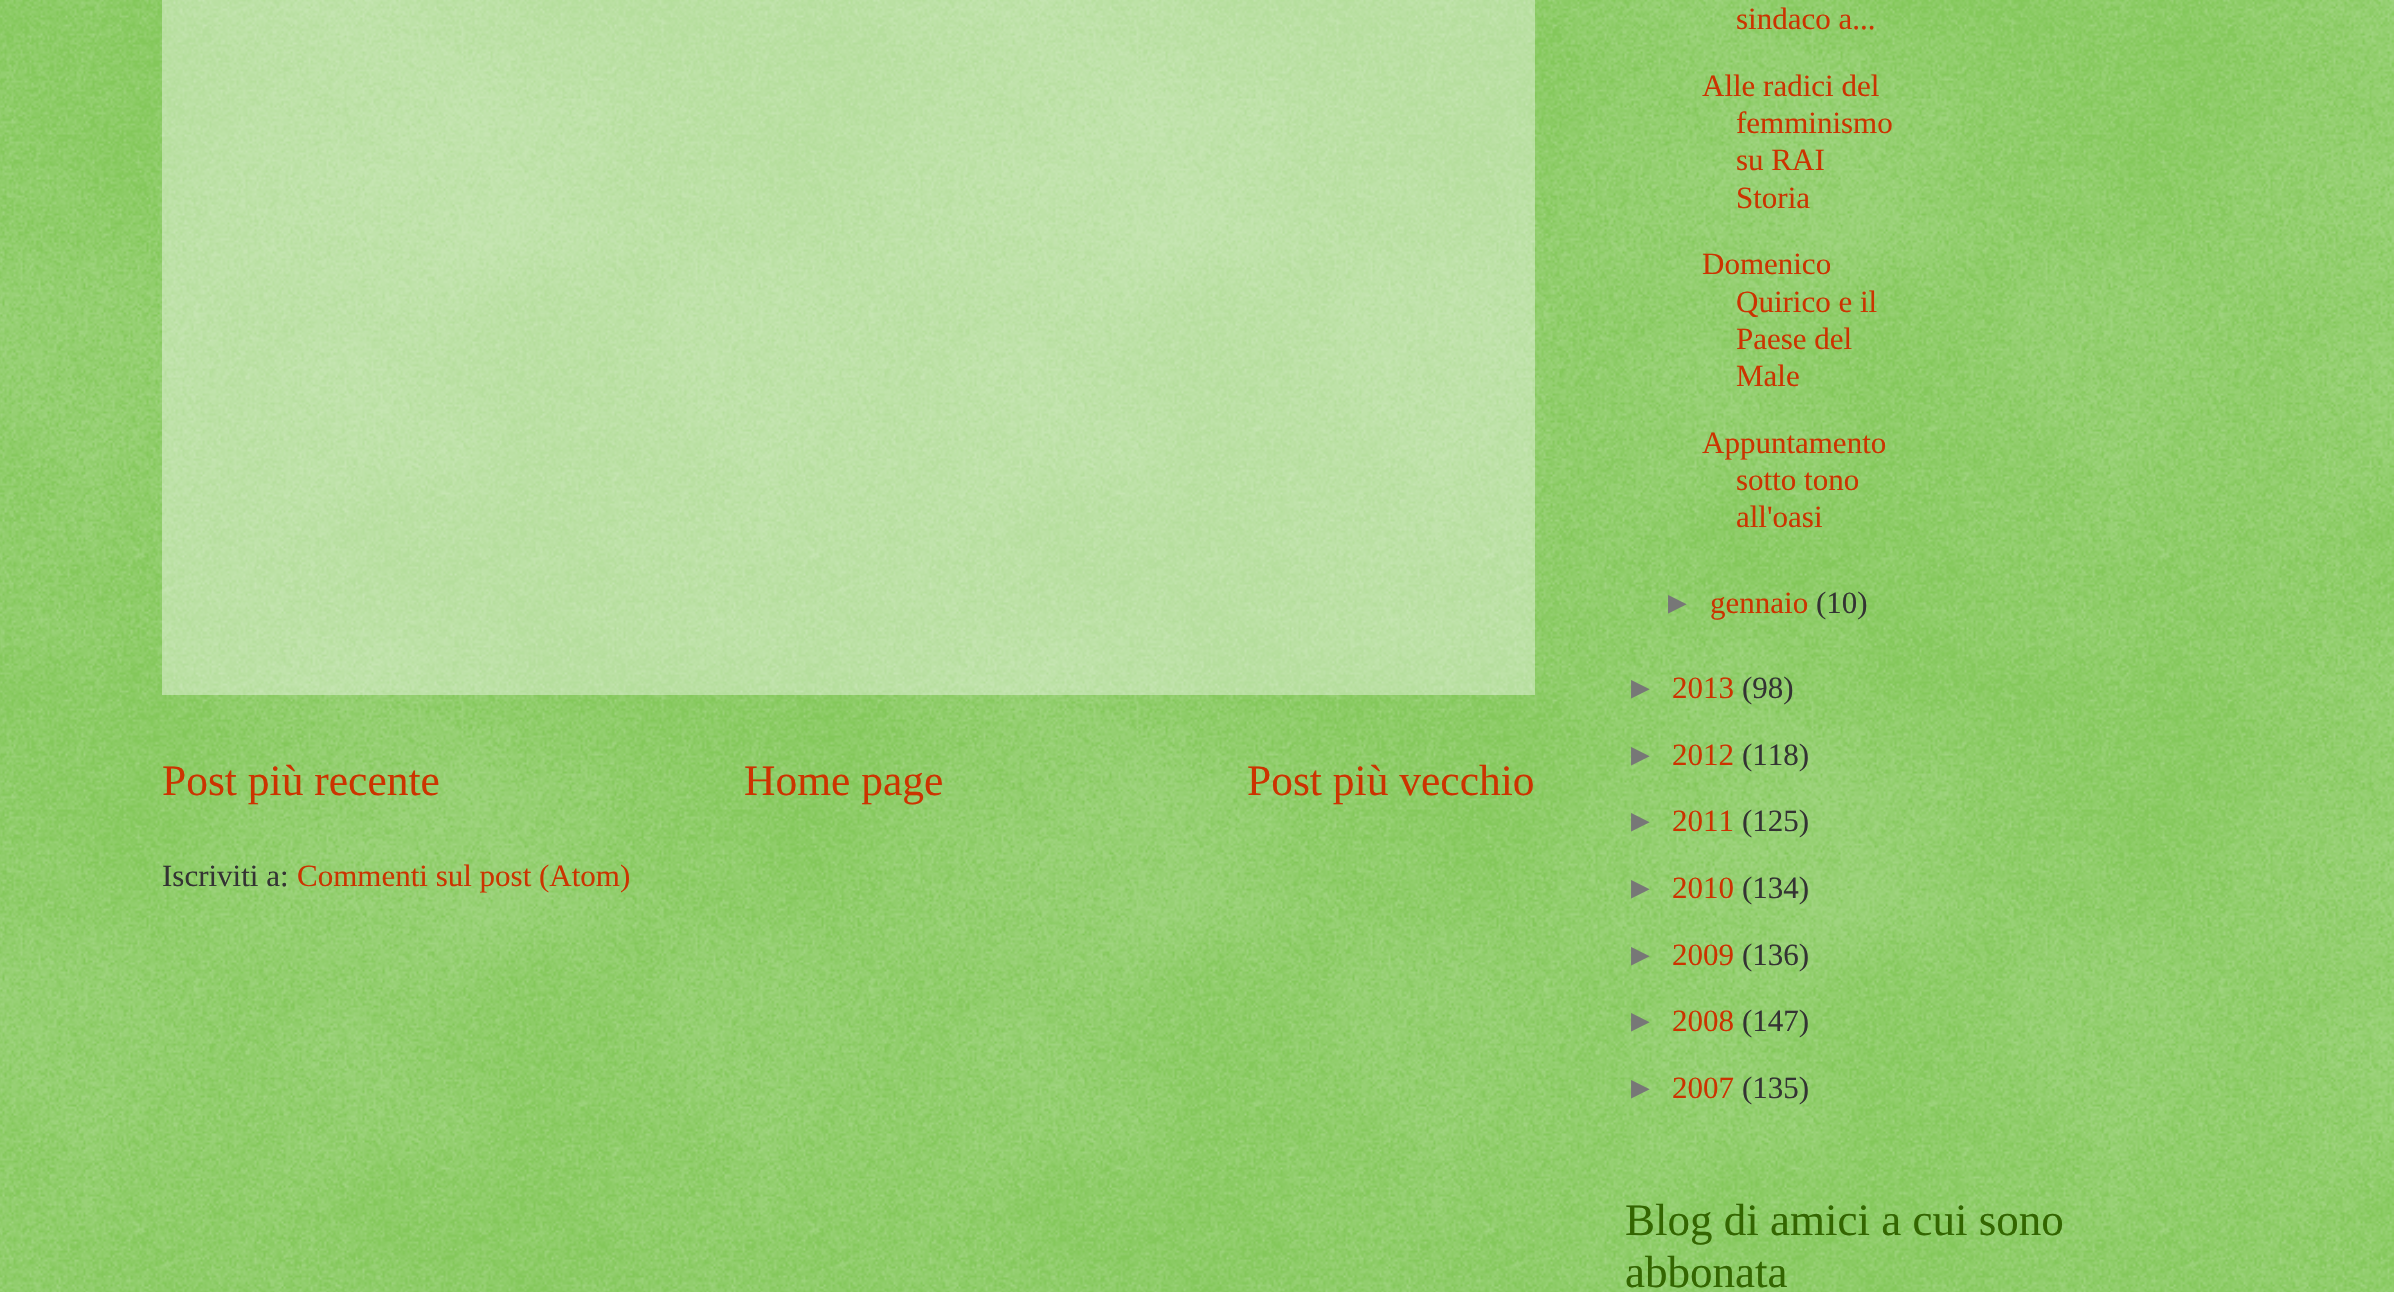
void draw(SkCanvas* canvas) {
	SkPaint paint;
	paint.setAntiAlias(true);
	canvas->clear(0xff66bb33);
	canvas->drawImageRect(SkImages::DeferredFromEncodedData(SkData::MakeFromFileName("img1.png")), SkRect::MakeXYWH(0, 0, 2394, 1292), SkSamplingOptions());
	paint.setColor(0x66ffffff);
	canvas->drawRect(SkRect::MakeXYWH(162, 0, 1373, 695), paint);
	SkFont f1(fontMgr->matchFamilyStyle("Liberation Serif", SkFontStyle::Normal()), 43.5);
	f1.setSubpixel(true);
	paint.setColor(0xffcc3300);
	canvas->drawString("Post più recente", 162, 795, f1, paint);
	canvas->drawString("Home page", 744, 795, f1, paint);
	canvas->drawString("Post più vecchio", 1247, 795, f1, paint);
	SkFont f2(fontMgr->matchFamilyStyle("Liberation Serif", SkFontStyle::Normal()), 31);
	f2.setSubpixel(true);
	paint.setColor(0xff333333);
	canvas->drawString("Iscriviti a:", 162, 886, f2, paint);
	paint.setColor(0xffcc3300);
	canvas->drawString("Commenti sul post (Atom)", 297, 886, f2, paint);
	canvas->drawString("sindaco a...", 1736, 29, f2, paint);
	canvas->drawString("Alle radici del", 1702, 96, f2, paint);
	canvas->drawString("femminismo", 1736, 133, f2, paint);
	canvas->drawString("su RAI", 1736, 170, f2, paint);
	canvas->drawString("Storia", 1736, 208, f2, paint);
	canvas->drawString("Domenico", 1702, 274, f2, paint);
	canvas->drawString("Quirico e il", 1736, 312, f2, paint);
	canvas->drawString("Paese del", 1736, 349, f2, paint);
	canvas->drawString("Male", 1736, 386, f2, paint);
	canvas->drawString("Appuntamento", 1702, 453, f2, paint);
	canvas->drawString("sotto tono", 1736, 490, f2, paint);
	canvas->drawString("all'oasi", 1736, 527, f2, paint);
	SkFont f3(fontMgr->matchFamilyStyle("Liberation Sans", SkFontStyle::Normal()), 31);
	f3.setSubpixel(true);
	paint.setColor(0xff777777);
	canvas->drawString("►", 1662, 613, f3, paint);
	paint.setColor(0xffcc3300);
	canvas->drawString("gennaio", 1710, 613, f2, paint);
	paint.setColor(0xff333333);
	canvas->drawString("(10)", 1816, 613, f2, paint);
	paint.setColor(0xff777777);
	canvas->drawString("►", 1625, 698, f3, paint);
	paint.setColor(0xffcc3300);
	canvas->drawString("2013", 1672, 698, f2, paint);
	paint.setColor(0xff333333);
	canvas->drawString("(98)", 1742, 698, f2, paint);
	paint.setColor(0xff777777);
	canvas->drawString("►", 1625, 765, f3, paint);
	paint.setColor(0xffcc3300);
	canvas->drawString("2012", 1672, 765, f2, paint);
	paint.setColor(0xff333333);
	canvas->drawString("(118)", 1742, 765, f2, paint);
	paint.setColor(0xff777777);
	canvas->drawString("►", 1625, 831, f3, paint);
	paint.setColor(0xffcc3300);
	canvas->drawString("2011", 1672, 831, f2, paint);
	paint.setColor(0xff333333);
	canvas->drawString("(125)", 1742, 831, f2, paint);
	paint.setColor(0xff777777);
	canvas->drawString("►", 1625, 898, f3, paint);
	paint.setColor(0xffcc3300);
	canvas->drawString("2010", 1672, 898, f2, paint);
	paint.setColor(0xff333333);
	canvas->drawString("(134)", 1742, 898, f2, paint);
	paint.setColor(0xff777777);
	canvas->drawString("►", 1625, 965, f3, paint);
	paint.setColor(0xffcc3300);
	canvas->drawString("2009", 1672, 965, f2, paint);
	paint.setColor(0xff333333);
	canvas->drawString("(136)", 1742, 965, f2, paint);
	paint.setColor(0xff777777);
	canvas->drawString("►", 1625, 1031, f3, paint);
	paint.setColor(0xffcc3300);
	canvas->drawString("2008", 1672, 1031, f2, paint);
	paint.setColor(0xff333333);
	canvas->drawString("(147)", 1742, 1031, f2, paint);
	paint.setColor(0xff777777);
	canvas->drawString("►", 1625, 1098, f3, paint);
	paint.setColor(0xffcc3300);
	canvas->drawString("2007", 1672, 1098, f2, paint);
	paint.setColor(0xff333333);
	canvas->drawString("(135)", 1742, 1098, f2, paint);
	SkFont f4(fontMgr->matchFamilyStyle("Liberation Serif", SkFontStyle::Normal()), 45);
	f4.setSubpixel(true);
	paint.setColor(0xff336600);
	canvas->drawString("Blog di amici a cui sono", 1625, 1235, f4, paint);
	canvas->drawString("abbonata", 1625, 1287, f4, paint);
}
